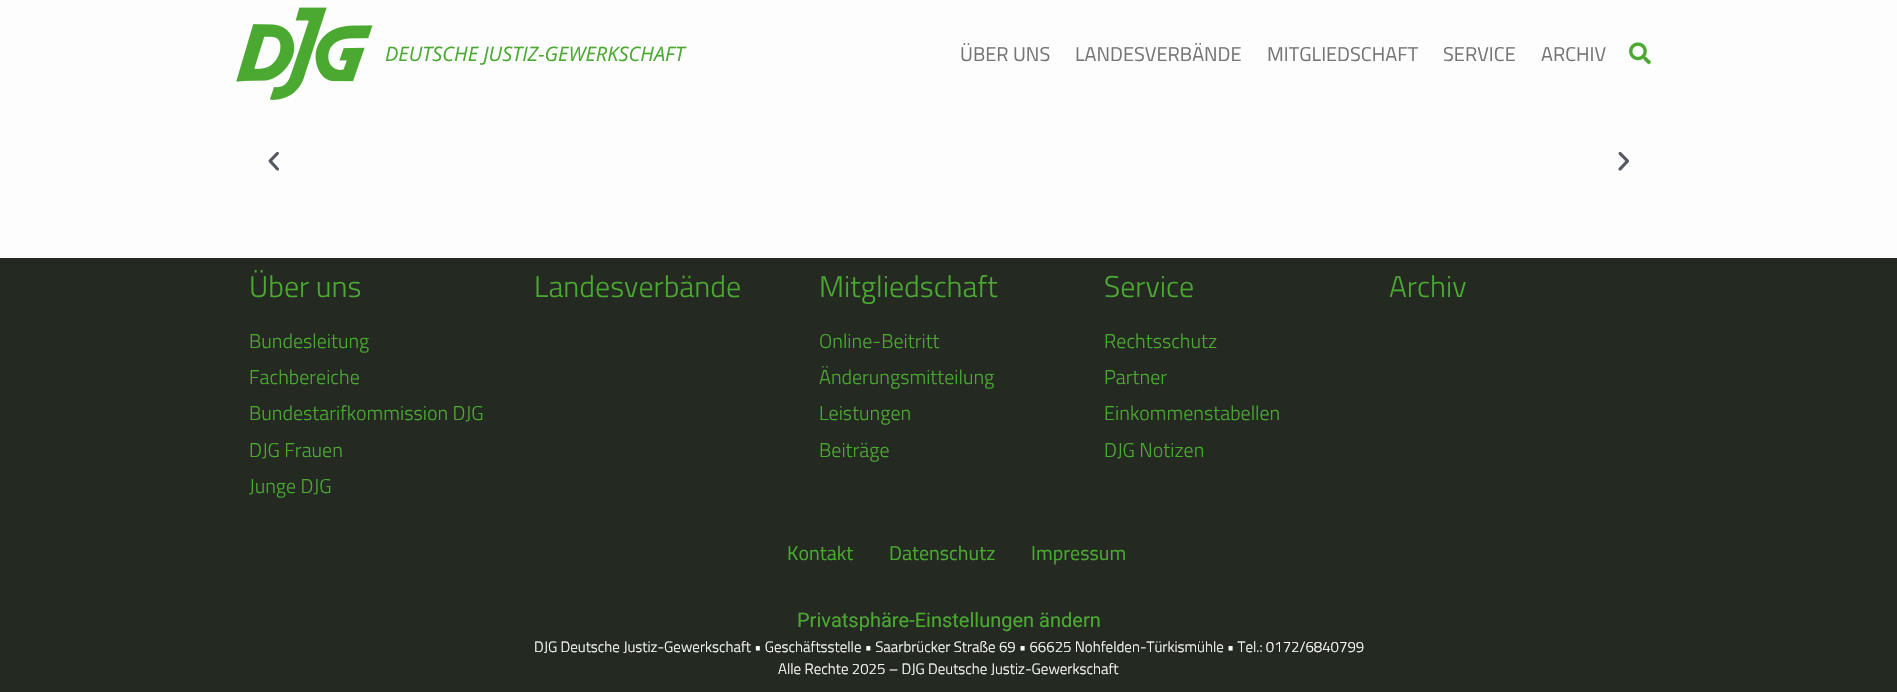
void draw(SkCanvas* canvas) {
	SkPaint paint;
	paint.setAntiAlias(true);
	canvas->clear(0xfffdfdfd);
	canvas->drawImageRect(SkImages::DeferredFromEncodedData(SkData::MakeFromFileName("img1.png")), SkRect::MakeXYWH(236, 7, 137, 93), SkSamplingOptions());
	SkFont f1(fontMgr->matchFamilyStyle("Open Sans", SkFontStyle::Italic()), 20);
	f1.setSubpixel(true);
	paint.setColor(0xff4ba932);
	canvas->drawString("DEUTSCHE JUSTIZ-GEWERKSCHAFT", 385, 61, f1, paint);
	SkFont f2(fontMgr->matchFamilyStyle("Titillium Web", SkFontStyle::Normal()), 20);
	f2.setSubpixel(true);
	paint.setColor(0xff757575);
	canvas->drawString("ÜBER UNS", 960, 61, f2, paint);
	canvas->drawString("LANDESVERBÄNDE", 1075, 61, f2, paint);
	canvas->drawString("MITGLIEDSCHAFT", 1267, 61, f2, paint);
	canvas->drawString("SERVICE", 1443, 61, f2, paint);
	canvas->drawString("ARCHIV", 1541, 61, f2, paint);
	canvas->drawImageRect(SkImages::DeferredFromEncodedData(SkData::MakeFromFileName("img2.png")), SkRect::MakeXYWH(1629, 42, 22, 23), SkSamplingOptions());
	canvas->drawImageRect(SkImages::DeferredFromEncodedData(SkData::MakeFromFileName("img3.png")), SkRect::MakeXYWH(268, 151, 11, 20), SkSamplingOptions());
	canvas->drawImageRect(SkImages::DeferredFromEncodedData(SkData::MakeFromFileName("img4.png")), SkRect::MakeXYWH(1618, 151, 11, 20), SkSamplingOptions());
	paint.setColor(0xff242a22);
	canvas->drawRect(SkRect::MakeXYWH(0, 258, 1897, 434), paint);
	SkFont f3(fontMgr->matchFamilyStyle("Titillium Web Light", SkFontStyle(300, SkFontStyle::kNormal_Width, SkFontStyle::kUpright_Slant)), 30);
	f3.setSubpixel(true);
	paint.setColor(0xff4ba932);
	canvas->drawString("Über uns", 249, 297, f3, paint);
	SkFont f4(fontMgr->matchFamilyStyle("Titillium Web Light", SkFontStyle(300, SkFontStyle::kNormal_Width, SkFontStyle::kUpright_Slant)), 20);
	f4.setSubpixel(true);
	canvas->drawString("Bundesleitung", 249, 348, f4, paint);
	canvas->drawString("Fachbereiche", 249, 384, f4, paint);
	canvas->drawString("Bundestarifkommission DJG", 249, 420, f4, paint);
	canvas->drawString("DJG Frauen", 249, 457, f4, paint);
	canvas->drawString("Junge DJG", 249, 493, f4, paint);
	canvas->drawString("Landesverbände", 534, 297, f3, paint);
	canvas->drawString("Mitgliedschaft", 819, 297, f3, paint);
	canvas->drawString("Online-Beitritt", 819, 348, f4, paint);
	canvas->drawString("Änderungsmitteilung", 819, 384, f4, paint);
	canvas->drawString("Leistungen", 819, 420, f4, paint);
	canvas->drawString("Beiträge", 819, 457, f4, paint);
	canvas->drawString("Service", 1104, 297, f3, paint);
	canvas->drawString("Rechtsschutz", 1104, 348, f4, paint);
	canvas->drawString("Partner", 1104, 384, f4, paint);
	canvas->drawString("Einkommenstabellen", 1104, 420, f4, paint);
	canvas->drawString("DJG Notizen", 1104, 457, f4, paint);
	canvas->drawString("Archiv", 1389, 297, f3, paint);
	canvas->drawString("Kontakt", 787, 560, f2, paint);
	canvas->drawString("Datenschutz", 889, 560, f2, paint);
	canvas->drawString("Impressum", 1031, 560, f2, paint);
	SkFont f5(fontMgr->matchFamilyStyle("Roboto", SkFontStyle::Normal()), 20);
	f5.setSubpixel(true);
	canvas->drawString("Privatsphäre-Einstellungen ändern", 797, 627, f5, paint);
	SkFont f6(fontMgr->matchFamilyStyle("Titillium Web Light", SkFontStyle(300, SkFontStyle::kNormal_Width, SkFontStyle::kUpright_Slant)), 15);
	f6.setSubpixel(true);
	paint.setColor(0xfffdfdfd);
	canvas->drawString("DJG Deutsche Justiz-Gewerkschaft • Geschäftsstelle • Saarbrücker Straße 69 • 66625 Nohfelden-Türkismühle • Tel.: 0172/6840799", 534, 652, f6, paint);
	canvas->drawString("Alle Rechte 2025 – DJG Deutsche Justiz-Gewerkschaft", 778, 674, f6, paint);
}
